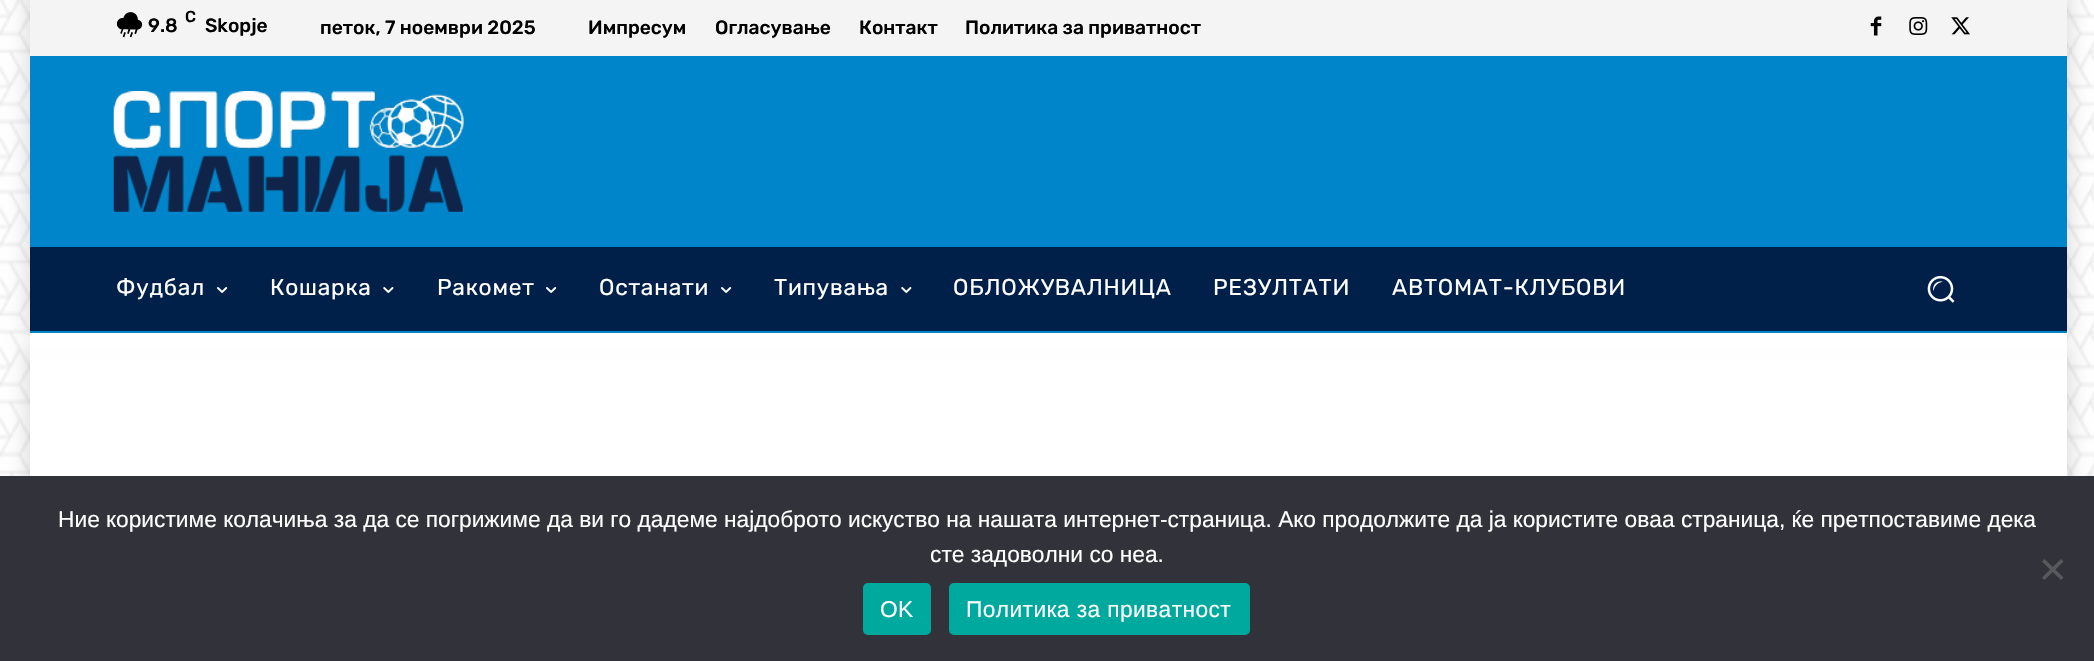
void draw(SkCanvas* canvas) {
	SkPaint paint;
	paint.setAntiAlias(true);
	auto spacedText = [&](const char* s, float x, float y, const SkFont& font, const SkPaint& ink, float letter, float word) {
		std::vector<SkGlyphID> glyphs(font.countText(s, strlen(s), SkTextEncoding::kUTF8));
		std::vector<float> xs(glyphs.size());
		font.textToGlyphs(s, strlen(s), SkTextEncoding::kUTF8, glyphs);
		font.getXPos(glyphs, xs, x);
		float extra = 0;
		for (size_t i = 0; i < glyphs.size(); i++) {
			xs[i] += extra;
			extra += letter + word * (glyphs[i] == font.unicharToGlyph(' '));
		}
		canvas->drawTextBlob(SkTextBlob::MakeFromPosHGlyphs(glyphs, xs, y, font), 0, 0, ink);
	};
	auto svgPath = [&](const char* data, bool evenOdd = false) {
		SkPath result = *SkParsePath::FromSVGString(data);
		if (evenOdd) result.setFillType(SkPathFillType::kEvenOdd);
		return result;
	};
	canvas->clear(0xffffffff);
	canvas->drawImageRect(SkImages::DeferredFromEncodedData(SkData::MakeFromFileName("img1.png")), SkRect::MakeXYWH(0, 0, 2094, 476), SkSamplingOptions());
	paint.setColor(0x1f000000);
	paint.setMaskFilter(SkMaskFilter::MakeBlur(kNormal_SkBlurStyle, 9));
	canvas->drawRect(SkRect::MakeXYWH(25, 345, 2047, 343), paint);
	paint.setMaskFilter(nullptr);
	paint.setColor(0xffffffff);
	canvas->drawRect(SkRect::MakeXYWH(30, 350, 2037, 126), paint);
	paint.setColor(0x1f000000);
	paint.setMaskFilter(SkMaskFilter::MakeBlur(kNormal_SkBlurStyle, 9));
	canvas->drawRect(SkRect::MakeXYWH(25, -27, 2047, 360), paint);
	paint.setMaskFilter(nullptr);
	paint.setColor(0xfff4f4f4);
	canvas->drawRect(SkRect::MakeXYWH(30, 0, 2037, 56), paint);
	canvas->drawImageRect(SkImages::DeferredFromEncodedData(SkData::MakeFromFileName("img2.png")), SkRect::MakeXYWH(116, 12, 27, 26), SkSamplingOptions());
	SkFont f1(fontMgr->matchFamilyStyle("Rubik", SkFontStyle(500, SkFontStyle::kNormal_Width, SkFontStyle::kUpright_Slant)), 16);
	f1.setSubpixel(true);
	paint.setColor(0xff000000);
	canvas->drawString("C", 185, 22, f1, paint);
	SkFont f2(fontMgr->matchFamilyStyle("Rubik", SkFontStyle(500, SkFontStyle::kNormal_Width, SkFontStyle::kUpright_Slant)), 19.25);
	f2.setSubpixel(true);
	canvas->drawString("9.8", 148, 32, f2, paint);
	canvas->drawString("Skopje", 205, 32, f2, paint);
	canvas->drawString("петок, 7 ноември 2025", 320, 34, f2, paint);
	canvas->drawString("Импресум", 588, 34, f2, paint);
	canvas->drawString("Огласување", 715, 34, f2, paint);
	canvas->drawString("Контакт", 859, 34, f2, paint);
	canvas->drawString("Политика за приватност", 965, 34, f2, paint);
	canvas->drawImageRect(SkImages::DeferredFromEncodedData(SkData::MakeFromFileName("img3.png")), SkRect::MakeXYWH(1870, 16, 12, 20), SkSamplingOptions());
	canvas->drawImageRect(SkImages::DeferredFromEncodedData(SkData::MakeFromFileName("img4.png")), SkRect::MakeXYWH(1909, 17, 19, 18), SkSamplingOptions());
	canvas->drawImageRect(SkImages::DeferredFromEncodedData(SkData::MakeFromFileName("img5.png")), SkRect::MakeXYWH(1951, 17, 19, 18), SkSamplingOptions());
	{
		const SkColor colors[] = {0xffffffff, 0xffffffff, 0xff0085ca, 0xff0085ca};
		const float stops[] = {0, 0.16, 0.27, 1};
		const SkPoint ends[] = {{1048, 350}, {1048, 0}};
		paint.setShader(SkGradientShader::MakeLinear(ends, colors, stops, 4, SkTileMode::kClamp));
		paint.setAlpha(255);
	}
	canvas->drawRect(SkRect::MakeXYWH(30, 56, 2037, 294), paint);
	canvas->drawImageRect(SkImages::DeferredFromEncodedData(SkData::MakeFromFileName("img6.png")), SkRect::MakeXYWH(113, 91, 351, 121), SkSamplingOptions());
	paint.setShader(nullptr);
	paint.setColor(0xff00204a);
	canvas->drawRect(SkRect::MakeXYWH(30, 247, 2037, 84), paint);
	SkFont f3(fontMgr->matchFamilyStyle("Rubik", SkFontStyle::Normal()), 22.75);
	f3.setSubpixel(true);
	paint.setColor(0xffffffff);
	spacedText("Фудбал", 116, 295, f3, paint, 0.75, 0);
	canvas->drawImageRect(SkImages::DeferredFromEncodedData(SkData::MakeFromFileName("img7.png")), SkRect::MakeXYWH(217, 287, 11, 6), SkSamplingOptions());
	spacedText("Кошарка", 270, 295, f3, paint, 0.75, 0);
	canvas->drawImageRect(SkImages::DeferredFromEncodedData(SkData::MakeFromFileName("img8.png")), SkRect::MakeXYWH(383, 287, 11, 6), SkSamplingOptions());
	spacedText("Ракомет", 437, 295, f3, paint, 0.75, 0);
	canvas->drawImageRect(SkImages::DeferredFromEncodedData(SkData::MakeFromFileName("img7.png")), SkRect::MakeXYWH(546, 287, 11, 6), SkSamplingOptions());
	spacedText("Останати", 599, 295, f3, paint, 0.75, 0);
	canvas->drawImageRect(SkImages::DeferredFromEncodedData(SkData::MakeFromFileName("img7.png")), SkRect::MakeXYWH(721, 287, 11, 6), SkSamplingOptions());
	spacedText("Типувања", 774, 295, f3, paint, 0.75, 0);
	canvas->drawImageRect(SkImages::DeferredFromEncodedData(SkData::MakeFromFileName("img8.png")), SkRect::MakeXYWH(901, 287, 11, 6), SkSamplingOptions());
	spacedText("ОБЛОЖУВАЛНИЦА", 953, 295, f3, paint, 0.75, 0);
	spacedText("РЕЗУЛТАТИ", 1213, 295, f3, paint, 0.75, 0);
	spacedText("АВТОМАТ-КЛУБОВИ", 1392, 295, f3, paint, 0.75, 0);
	canvas->drawImageRect(SkImages::DeferredFromEncodedData(SkData::MakeFromFileName("img9.png")), SkRect::MakeXYWH(1927, 275, 28, 28), SkSamplingOptions());
	paint.setColor(0xff0085ca);
	canvas->drawRect(SkRect::MakeXYWH(30, 331, 2037, 2), paint);
	paint.setColor(0xff32323a);
	canvas->drawRect(SkRect::MakeXYWH(0, 476, 2094, 185), paint);
	SkFont f4(fontMgr->matchFamilyStyle("Liberation Sans", SkFontStyle::Normal()), 22.75);
	f4.setSubpixel(true);
	paint.setColor(0xffffffff);
	canvas->drawString("Ние користиме колачиња за да се погрижиме да ви го дадеме најдоброто искуство на нашата интернет-страница. Ако продолжите да ја користите оваа страница, ќе претпоставиме дека", 58, 527, f4, paint);
	canvas->drawString("сте задоволни со неа.", 930, 562, f4, paint);
	paint.setColor(0xff59595d);
	canvas->drawPath(svgPath("M2061 559L2063.5 561.5L2044.5 580L2042 577.5Z"), paint);
	canvas->drawPath(svgPath("M2042 561.5L2044.5 559L2063.5 577.5L2061 580Z"), paint);
	paint.setColor(0xff00a99d);
	canvas->drawRoundRect(SkRect::MakeXYWH(863, 583, 68, 52), 5, 5, paint);
	paint.setColor(0xffffffff);
	spacedText("OK", 880, 617, f4, paint, 0.4, 0);
	paint.setColor(0xff00a99d);
	canvas->drawRoundRect(SkRect::MakeXYWH(949, 583, 301, 52), 5, 5, paint);
	paint.setColor(0xffffffff);
	spacedText("Политика за приватност", 966, 617, f4, paint, 0.4, 0);
}
